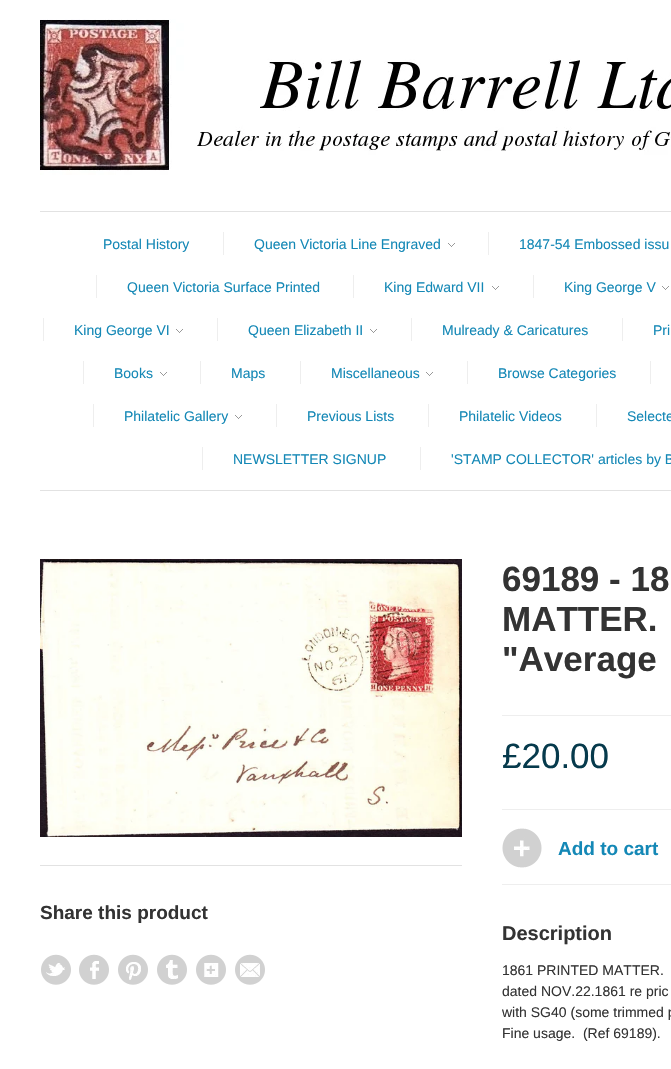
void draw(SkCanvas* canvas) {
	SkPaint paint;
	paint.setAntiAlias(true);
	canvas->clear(0xffffffff);
	paint.setColor(0xffe2e2e2);
	canvas->drawRect(SkRect::MakeXYWH(40, 490, 631, 1), paint);
	canvas->drawImageRect(SkImages::DeferredFromEncodedData(SkData::MakeFromFileName("img1.png")), SkRect::MakeXYWH(40, 19, 631, 156), SkSamplingOptions());
	canvas->drawRect(SkRect::MakeXYWH(40, 211, 631, 1), paint);
	SkFont f1(fontMgr->matchFamilyStyle("Liberation Sans", SkFontStyle::Normal()), 14);
	f1.setSubpixel(true);
	paint.setColor(0xff1488b6);
	canvas->drawString("Postal History", 103, 249, f1, paint);
	paint.setColor(0xffeeeeee);
	canvas->drawRect(SkRect::MakeXYWH(223, 232, 1, 23), paint);
	paint.setColor(0xff1488b6);
	canvas->drawString("Queen Victoria Line Engraved", 254, 249, f1, paint);
	canvas->drawImageRect(SkImages::DeferredFromEncodedData(SkData::MakeFromFileName("img2.png")), SkRect::MakeXYWH(448, 243, 7, 4), SkSamplingOptions());
	paint.setColor(0xffeeeeee);
	canvas->drawRect(SkRect::MakeXYWH(488, 232, 1, 23), paint);
	paint.setColor(0xff1488b6);
	canvas->drawString("1847-54 Embossed issu", 519, 249, f1, paint);
	paint.setColor(0xffeeeeee);
	canvas->drawRect(SkRect::MakeXYWH(96, 275, 1, 23), paint);
	paint.setColor(0xff1488b6);
	canvas->drawString("Queen Victoria Surface Printed", 127, 292, f1, paint);
	paint.setColor(0xffeeeeee);
	canvas->drawRect(SkRect::MakeXYWH(353, 275, 1, 23), paint);
	paint.setColor(0xff1488b6);
	canvas->drawString("King Edward VII", 384, 292, f1, paint);
	canvas->drawImageRect(SkImages::DeferredFromEncodedData(SkData::MakeFromFileName("img2.png")), SkRect::MakeXYWH(492, 286, 7, 4), SkSamplingOptions());
	paint.setColor(0xffeeeeee);
	canvas->drawRect(SkRect::MakeXYWH(533, 275, 1, 23), paint);
	paint.setColor(0xff1488b6);
	canvas->drawString("King George V", 564, 292, f1, paint);
	canvas->drawImageRect(SkImages::DeferredFromEncodedData(SkData::MakeFromFileName("img2.png")), SkRect::MakeXYWH(662, 286, 7, 4), SkSamplingOptions());
	paint.setColor(0xffeeeeee);
	canvas->drawRect(SkRect::MakeXYWH(43, 318, 1, 23), paint);
	paint.setColor(0xff1488b6);
	canvas->drawString("King George VI", 74, 335, f1, paint);
	canvas->drawImageRect(SkImages::DeferredFromEncodedData(SkData::MakeFromFileName("img2.png")), SkRect::MakeXYWH(176, 329, 7, 4), SkSamplingOptions());
	paint.setColor(0xffeeeeee);
	canvas->drawRect(SkRect::MakeXYWH(217, 318, 1, 23), paint);
	paint.setColor(0xff1488b6);
	canvas->drawString("Queen Elizabeth II", 248, 335, f1, paint);
	canvas->drawImageRect(SkImages::DeferredFromEncodedData(SkData::MakeFromFileName("img2.png")), SkRect::MakeXYWH(370, 329, 7, 4), SkSamplingOptions());
	paint.setColor(0xffeeeeee);
	canvas->drawRect(SkRect::MakeXYWH(411, 318, 1, 23), paint);
	paint.setColor(0xff1488b6);
	canvas->drawString("Mulready & Caricatures", 442, 335, f1, paint);
	paint.setColor(0xffeeeeee);
	canvas->drawRect(SkRect::MakeXYWH(622, 318, 1, 23), paint);
	paint.setColor(0xff1488b6);
	canvas->drawString("Pri", 653, 335, f1, paint);
	paint.setColor(0xffeeeeee);
	canvas->drawRect(SkRect::MakeXYWH(83, 361, 1, 23), paint);
	paint.setColor(0xff1488b6);
	canvas->drawString("Books", 114, 378, f1, paint);
	canvas->drawImageRect(SkImages::DeferredFromEncodedData(SkData::MakeFromFileName("img2.png")), SkRect::MakeXYWH(160, 372, 7, 4), SkSamplingOptions());
	paint.setColor(0xffeeeeee);
	canvas->drawRect(SkRect::MakeXYWH(200, 361, 1, 23), paint);
	paint.setColor(0xff1488b6);
	canvas->drawString("Maps", 231, 378, f1, paint);
	paint.setColor(0xffeeeeee);
	canvas->drawRect(SkRect::MakeXYWH(300, 361, 1, 23), paint);
	paint.setColor(0xff1488b6);
	canvas->drawString("Miscellaneous", 331, 378, f1, paint);
	canvas->drawImageRect(SkImages::DeferredFromEncodedData(SkData::MakeFromFileName("img2.png")), SkRect::MakeXYWH(426, 372, 7, 4), SkSamplingOptions());
	paint.setColor(0xffeeeeee);
	canvas->drawRect(SkRect::MakeXYWH(467, 361, 1, 23), paint);
	paint.setColor(0xff1488b6);
	canvas->drawString("Browse Categories", 498, 378, f1, paint);
	paint.setColor(0xffeeeeee);
	canvas->drawRect(SkRect::MakeXYWH(650, 361, 1, 23), paint);
	canvas->drawRect(SkRect::MakeXYWH(93, 404, 1, 23), paint);
	paint.setColor(0xff1488b6);
	canvas->drawString("Philatelic Gallery", 124, 421, f1, paint);
	canvas->drawImageRect(SkImages::DeferredFromEncodedData(SkData::MakeFromFileName("img2.png")), SkRect::MakeXYWH(235, 415, 7, 4), SkSamplingOptions());
	paint.setColor(0xffeeeeee);
	canvas->drawRect(SkRect::MakeXYWH(276, 404, 1, 23), paint);
	paint.setColor(0xff1488b6);
	canvas->drawString("Previous Lists", 307, 421, f1, paint);
	paint.setColor(0xffeeeeee);
	canvas->drawRect(SkRect::MakeXYWH(428, 404, 1, 23), paint);
	paint.setColor(0xff1488b6);
	canvas->drawString("Philatelic Videos", 459, 421, f1, paint);
	paint.setColor(0xffeeeeee);
	canvas->drawRect(SkRect::MakeXYWH(596, 404, 1, 23), paint);
	paint.setColor(0xff1488b6);
	canvas->drawString("Selecte", 627, 421, f1, paint);
	paint.setColor(0xffeeeeee);
	canvas->drawRect(SkRect::MakeXYWH(202, 447, 1, 23), paint);
	paint.setColor(0xff1488b6);
	canvas->drawString("NEWSLETTER SIGNUP", 233, 464, f1, paint);
	paint.setColor(0xffeeeeee);
	canvas->drawRect(SkRect::MakeXYWH(420, 447, 1, 23), paint);
	paint.setColor(0xff1488b6);
	canvas->drawString("'STAMP COLLECTOR' articles by B", 451, 464, f1, paint);
	canvas->drawImageRect(SkImages::DeferredFromEncodedData(SkData::MakeFromFileName("img3.png")), SkRect::MakeXYWH(40, 559, 422, 278), SkSamplingOptions());
	paint.setColor(0xffe2e2e2);
	canvas->drawRect(SkRect::MakeXYWH(40, 865, 422, 1), paint);
	SkFont f2(fontMgr->matchFamilyStyle("Liberation Sans", SkFontStyle::Bold()), 19);
	f2.setSubpixel(true);
	paint.setColor(0xff333333);
	canvas->drawString("Share this product", 40, 919, f2, paint);
	canvas->drawImageRect(SkImages::DeferredFromEncodedData(SkData::MakeFromFileName("img4.png")), SkRect::MakeXYWH(41, 954, 30, 31), SkSamplingOptions());
	canvas->drawImageRect(SkImages::DeferredFromEncodedData(SkData::MakeFromFileName("img5.png")), SkRect::MakeXYWH(79, 954, 30, 31), SkSamplingOptions());
	canvas->drawImageRect(SkImages::DeferredFromEncodedData(SkData::MakeFromFileName("img6.png")), SkRect::MakeXYWH(118, 954, 30, 31), SkSamplingOptions());
	canvas->drawImageRect(SkImages::DeferredFromEncodedData(SkData::MakeFromFileName("img7.png")), SkRect::MakeXYWH(157, 954, 30, 31), SkSamplingOptions());
	canvas->drawImageRect(SkImages::DeferredFromEncodedData(SkData::MakeFromFileName("img8.png")), SkRect::MakeXYWH(196, 954, 30, 31), SkSamplingOptions());
	canvas->drawImageRect(SkImages::DeferredFromEncodedData(SkData::MakeFromFileName("img9.png")), SkRect::MakeXYWH(235, 954, 30, 31), SkSamplingOptions());
	paint.setColor(0xffeeeeee);
	canvas->drawRect(SkRect::MakeXYWH(502, 715, 169, 1), paint);
	SkFont f3(fontMgr->matchFamilyStyle("Liberation Sans", SkFontStyle::Bold()), 35);
	f3.setSubpixel(true);
	paint.setColor(0xff333333);
	canvas->drawString("69189 - 18", 502, 591, f3, paint);
	canvas->drawString("MATTER.", 502, 631, f3, paint);
	canvas->drawString("\"Average", 502, 671, f3, paint);
	paint.setColor(0xffeeeeee);
	canvas->drawRect(SkRect::MakeXYWH(502, 809, 169, 1), paint);
	SkFont f4(fontMgr->matchFamilyStyle("Liberation Sans", SkFontStyle::Normal()), 35);
	f4.setSubpixel(true);
	paint.setColor(0xff063a4c);
	canvas->drawString("£20.00", 502, 768, f4, paint);
	paint.setColor(0xffeeeeee);
	canvas->drawRect(SkRect::MakeXYWH(502, 884, 169, 1), paint);
	canvas->drawImageRect(SkImages::DeferredFromEncodedData(SkData::MakeFromFileName("img10.png")), SkRect::MakeXYWH(502, 828, 40, 40), SkSamplingOptions());
	paint.setColor(0xff1488b6);
	canvas->drawString("Add to cart", 558, 855, f2, paint);
	SkFont f5(fontMgr->matchFamilyStyle("Liberation Sans", SkFontStyle::Bold()), 20);
	f5.setSubpixel(true);
	paint.setColor(0xff333333);
	canvas->drawString("Description", 502, 940, f5, paint);
	canvas->drawString("1861 PRINTED MATTER.", 502, 975, f1, paint);
	canvas->drawString("dated NOV.22.1861 re pric", 502, 996, f1, paint);
	canvas->drawString("with SG40 (some trimmed p", 502, 1017, f1, paint);
	canvas->drawString("Fine usage.  (Ref 69189).", 502, 1038, f1, paint);
}
